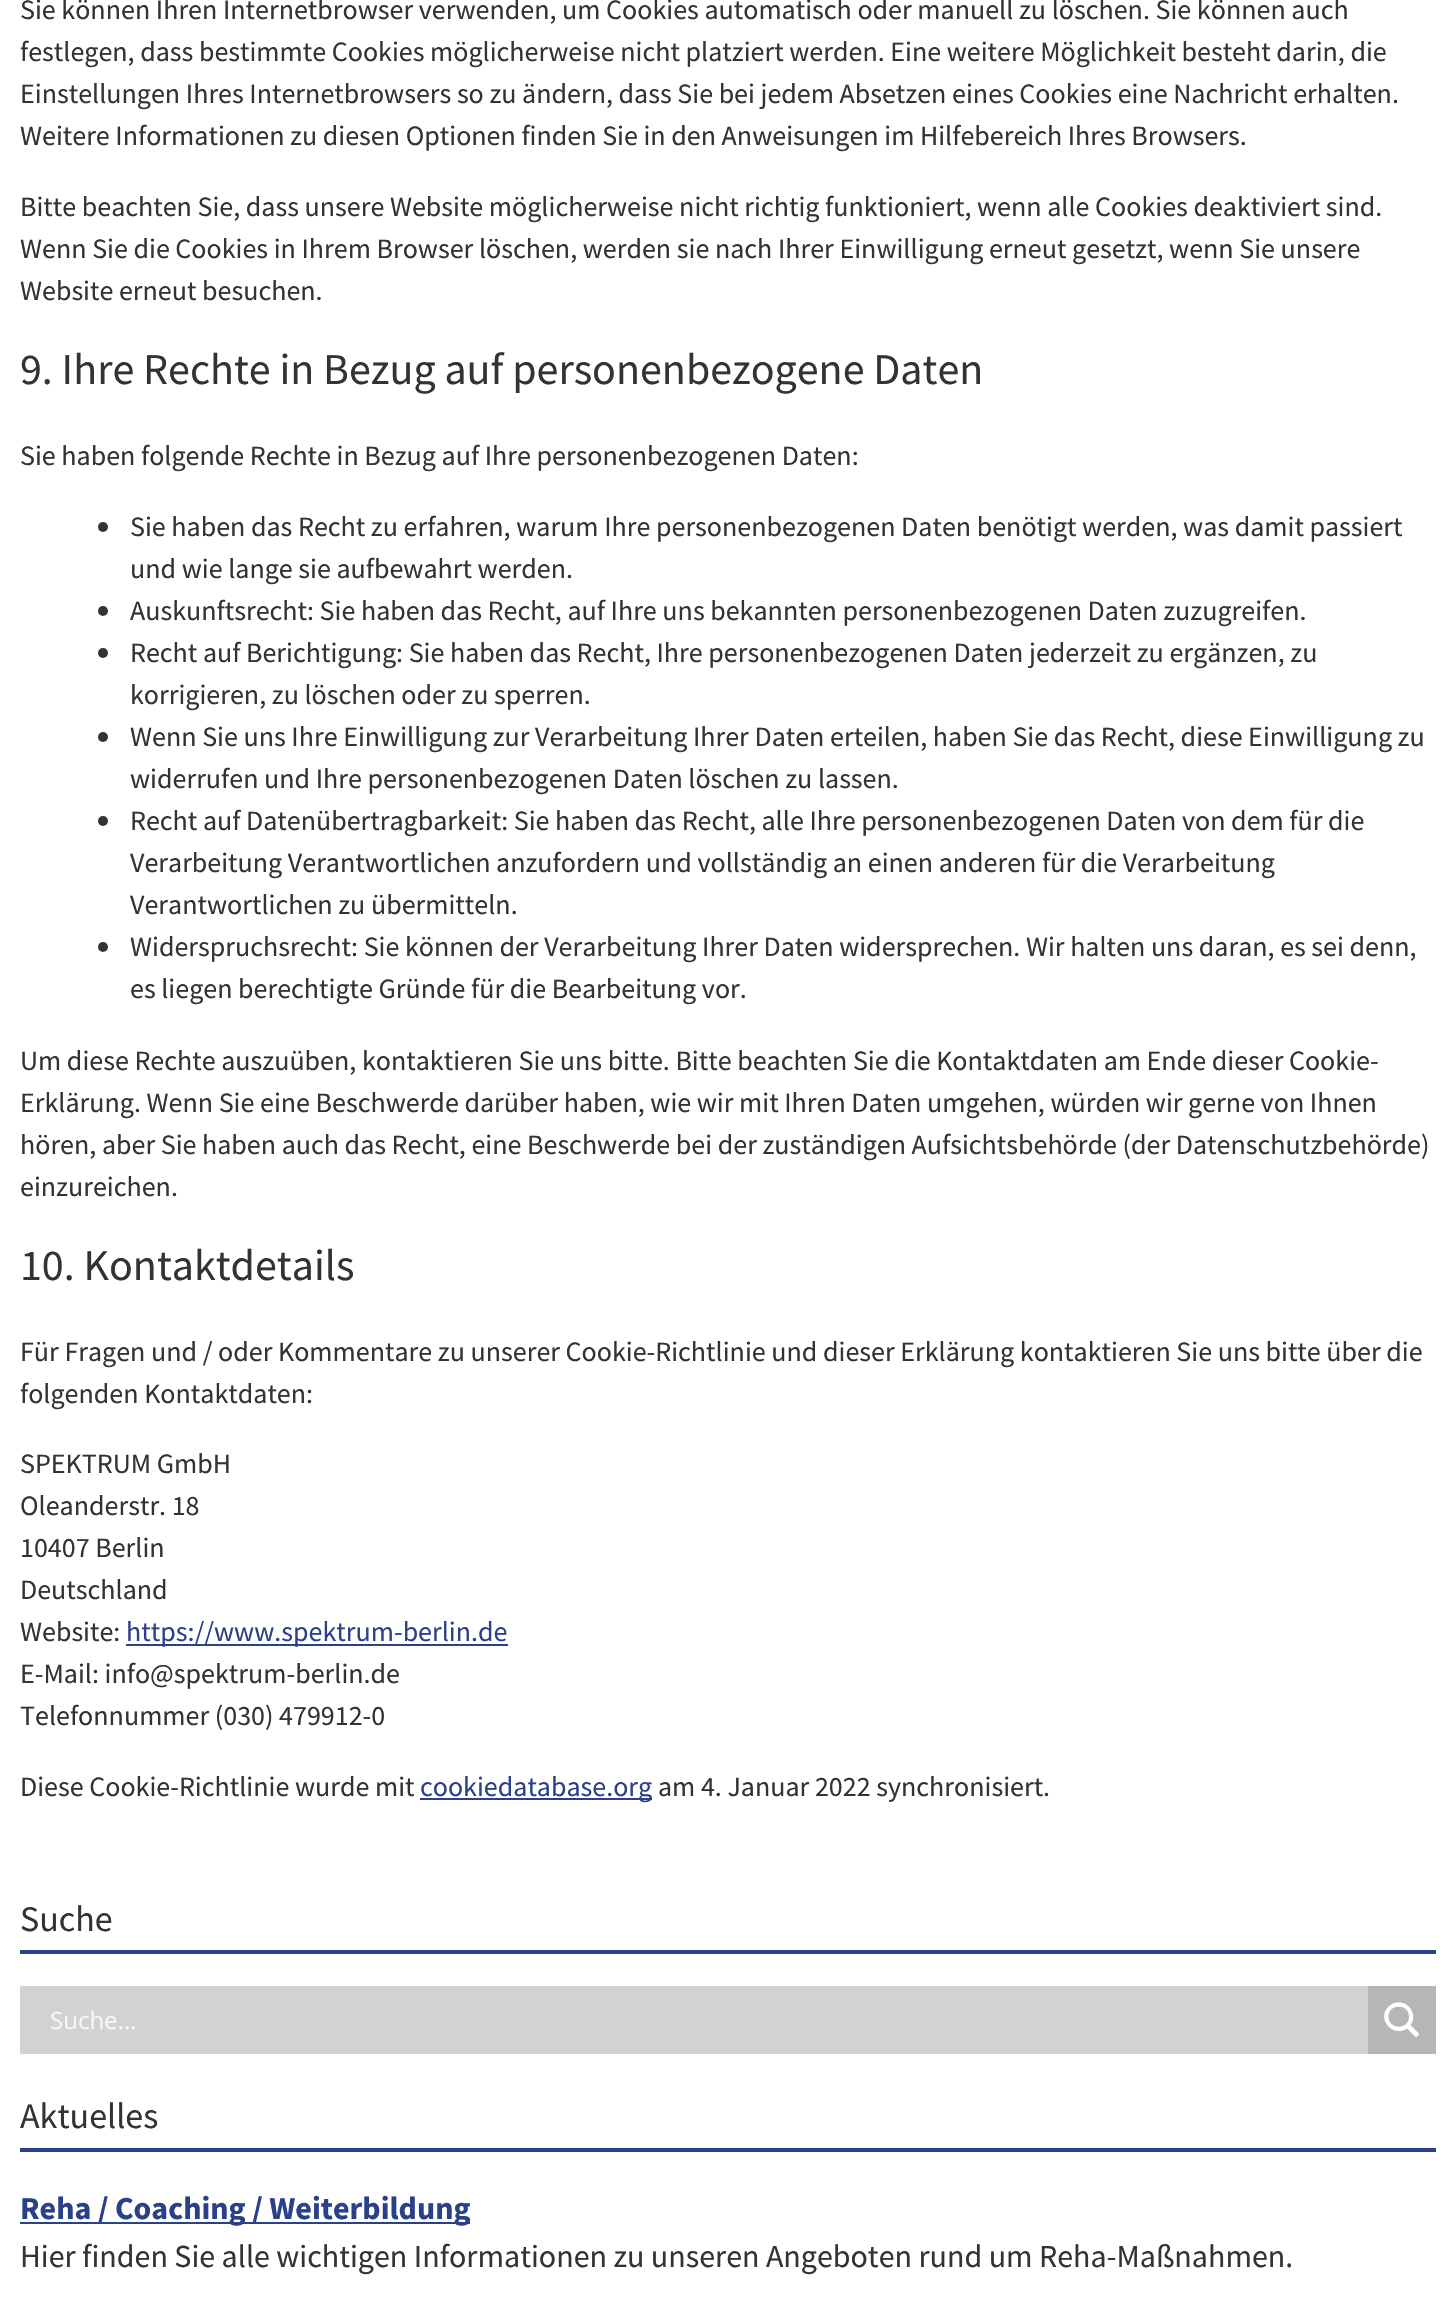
void draw(SkCanvas* canvas) {
	SkPaint paint;
	paint.setAntiAlias(true);
	auto svgPath = [&](const char* data, bool evenOdd = false) {
		SkPath result = *SkParsePath::FromSVGString(data);
		if (evenOdd) result.setFillType(SkPathFillType::kEvenOdd);
		return result;
	};
	canvas->clear(0xffffffff);
	SkFont f1(fontMgr->matchFamilyStyle("Source Sans Pro", SkFontStyle::Normal()), 28);
	f1.setSubpixel(true);
	paint.setColor(0xff333333);
	canvas->drawString("Sie können Ihren Internetbrowser verwenden, um Cookies automatisch oder manuell zu löschen. Sie können auch", 20, 19, f1, paint);
	canvas->drawString("festlegen, dass bestimmte Cookies möglicherweise nicht platziert werden. Eine weitere Möglichkeit besteht darin, die", 20, 61, f1, paint);
	canvas->drawString("Einstellungen Ihres Internetbrowsers so zu ändern, dass Sie bei jedem Absetzen eines Cookies eine Nachricht erhalten.", 20, 103, f1, paint);
	canvas->drawString("Weitere Informationen zu diesen Optionen finden Sie in den Anweisungen im Hilfebereich Ihres Browsers.", 20, 145, f1, paint);
	canvas->drawString("Bitte beachten Sie, dass unsere Website möglicherweise nicht richtig funktioniert, wenn alle Cookies deaktiviert sind.", 20, 216, f1, paint);
	canvas->drawString("Wenn Sie die Cookies in Ihrem Browser löschen, werden sie nach Ihrer Einwilligung erneut gesetzt, wenn Sie unsere", 20, 258, f1, paint);
	canvas->drawString("Website erneut besuchen.", 20, 300, f1, paint);
	SkFont f2(fontMgr->matchFamilyStyle("Source Sans Pro", SkFontStyle::Normal()), 44);
	f2.setSubpixel(true);
	canvas->drawString("9. Ihre Rechte in Bezug auf personenbezogene Daten", 20, 384, f2, paint);
	canvas->drawString("Sie haben folgende Rechte in Bezug auf Ihre personenbezogenen Daten:", 20, 465, f1, paint);
	canvas->drawCircle(103, 527, 5, paint);
	canvas->drawString("Sie haben das Recht zu erfahren, warum Ihre personenbezogenen Daten benötigt werden, was damit passiert", 130, 536, f1, paint);
	canvas->drawString("und wie lange sie aufbewahrt werden.", 130, 578, f1, paint);
	canvas->drawCircle(103, 611, 5, paint);
	canvas->drawString("Auskunftsrecht: Sie haben das Recht, auf Ihre uns bekannten personenbezogenen Daten zuzugreifen.", 130, 620, f1, paint);
	canvas->drawCircle(103, 653, 5, paint);
	canvas->drawString("Recht auf Berichtigung: Sie haben das Recht, Ihre personenbezogenen Daten jederzeit zu ergänzen, zu", 130, 662, f1, paint);
	canvas->drawString("korrigieren, zu löschen oder zu sperren.", 130, 704, f1, paint);
	canvas->drawCircle(103, 737, 5, paint);
	canvas->drawString("Wenn Sie uns Ihre Einwilligung zur Verarbeitung Ihrer Daten erteilen, haben Sie das Recht, diese Einwilligung zu", 130, 746, f1, paint);
	canvas->drawString("widerrufen und Ihre personenbezogenen Daten löschen zu lassen.", 130, 788, f1, paint);
	canvas->drawCircle(103, 821, 5, paint);
	canvas->drawString("Recht auf Datenübertragbarkeit: Sie haben das Recht, alle Ihre personenbezogenen Daten von dem für die", 130, 830, f1, paint);
	canvas->drawString("Verarbeitung Verantwortlichen anzufordern und vollständig an einen anderen für die Verarbeitung", 130, 872, f1, paint);
	canvas->drawString("Verantwortlichen zu übermitteln.", 130, 914, f1, paint);
	canvas->drawCircle(103, 947, 5, paint);
	canvas->drawString("Widerspruchsrecht: Sie können der Verarbeitung Ihrer Daten widersprechen. Wir halten uns daran, es sei denn,", 130, 956, f1, paint);
	canvas->drawString("es liegen berechtigte Gründe für die Bearbeitung vor.", 130, 998, f1, paint);
	canvas->drawString("Um diese Rechte auszuüben, kontaktieren Sie uns bitte. Bitte beachten Sie die Kontaktdaten am Ende dieser Cookie-", 20, 1070, f1, paint);
	canvas->drawString("Erklärung. Wenn Sie eine Beschwerde darüber haben, wie wir mit Ihren Daten umgehen, würden wir gerne von Ihnen", 20, 1112, f1, paint);
	canvas->drawString("hören, aber Sie haben auch das Recht, eine Beschwerde bei der zuständigen Aufsichtsbehörde (der Datenschutzbehörde)", 20, 1154, f1, paint);
	canvas->drawString("einzureichen.", 20, 1196, f1, paint);
	canvas->drawString("10. Kontaktdetails", 20, 1280, f2, paint);
	canvas->drawString("Für Fragen und / oder Kommentare zu unserer Cookie-Richtlinie und dieser Erklärung kontaktieren Sie uns bitte über die", 20, 1361, f1, paint);
	canvas->drawString("folgenden Kontaktdaten:", 20, 1403, f1, paint);
	canvas->drawString("SPEKTRUM GmbH", 20, 1473, f1, paint);
	canvas->drawString("Oleanderstr. 18", 20, 1515, f1, paint);
	canvas->drawString("10407 Berlin", 20, 1557, f1, paint);
	canvas->drawString("Deutschland", 20, 1599, f1, paint);
	canvas->drawString("Website:", 20, 1641, f1, paint);
	paint.setColor(0xff2a4088);
	canvas->drawRect(SkRect::MakeXYWH(126, 1644, 382, 2), paint);
	canvas->drawString("https://www.spektrum-berlin.de", 126, 1641, f1, paint);
	paint.setColor(0xff333333);
	canvas->drawString("E-Mail: info@spektrum-berlin.de", 20, 1683, f1, paint);
	canvas->drawString("Telefonnummer (030) 479912-0", 20, 1725, f1, paint);
	canvas->drawString("Diese Cookie-Richtlinie wurde mit", 20, 1796, f1, paint);
	paint.setColor(0xff2a4088);
	canvas->drawRect(SkRect::MakeXYWH(420, 1798, 232, 2), paint);
	canvas->drawString("cookiedatabase.org", 420, 1796, f1, paint);
	paint.setColor(0xff333333);
	canvas->drawString("am 4. Januar 2022 synchronisiert.", 658, 1796, f1, paint);
	paint.setColor(0xff2a4088);
	canvas->drawRect(SkRect::MakeXYWH(20, 1950, 1416, 4), paint);
	SkFont f3(fontMgr->matchFamilyStyle("Source Sans Pro", SkFontStyle::Normal()), 36);
	f3.setSubpixel(true);
	paint.setColor(0xff333333);
	canvas->drawString("Suche", 20, 1931, f3, paint);
	paint.setColor(0xffd2d2d2);
	canvas->drawRect(SkRect::MakeXYWH(20, 1986, 1348, 68), paint);
	SkFont f4(fontMgr->matchFamilyStyle("Open Sans", SkFontStyle::Normal()), 24);
	f4.setSubpixel(true);
	paint.setColor(0xfff8f8f8);
	canvas->drawString("Suche...", 50, 2029, f4, paint);
	paint.setColor(0xffb6b6b6);
	canvas->drawRect(SkRect::MakeXYWH(1368, 1986, 68, 68), paint);
	paint.setColor(0xffffffff);
	canvas->drawPath(svgPath("M1419.5 2034L1410.5 2025C1420.5 2011 1401.5 1994 1388.5 2006.5C1376 2019 1393 2038 1407 2028.5L1416 2037.5ZM1388.5 2016.5C1388.5 2003.5 1409 2003.5 1409 2016.5C1409 2030 1388.5 2030 1388.5 2016.5Z"), paint);
	paint.setColor(0xff2a4088);
	canvas->drawRect(SkRect::MakeXYWH(20, 2148, 1416, 4), paint);
	paint.setColor(0xff333333);
	canvas->drawString("Aktuelles", 20, 2128, f3, paint);
	paint.setColor(0xff2a4088);
	canvas->drawRect(SkRect::MakeXYWH(20, 2222, 450, 2), paint);
	SkFont f5(fontMgr->matchFamilyStyle("Source Sans Pro", SkFontStyle::Bold()), 32);
	f5.setSubpixel(true);
	canvas->drawString("Reha / Coaching / Weiterbildung", 20, 2219, f5, paint);
	SkFont f6(fontMgr->matchFamilyStyle("Source Sans Pro", SkFontStyle::Normal()), 32);
	f6.setSubpixel(true);
	paint.setColor(0xff333333);
	canvas->drawString("Hier finden Sie alle wichtigen Informationen zu unseren Angeboten rund um Reha-Maßnahmen.", 20, 2267, f6, paint);
}
